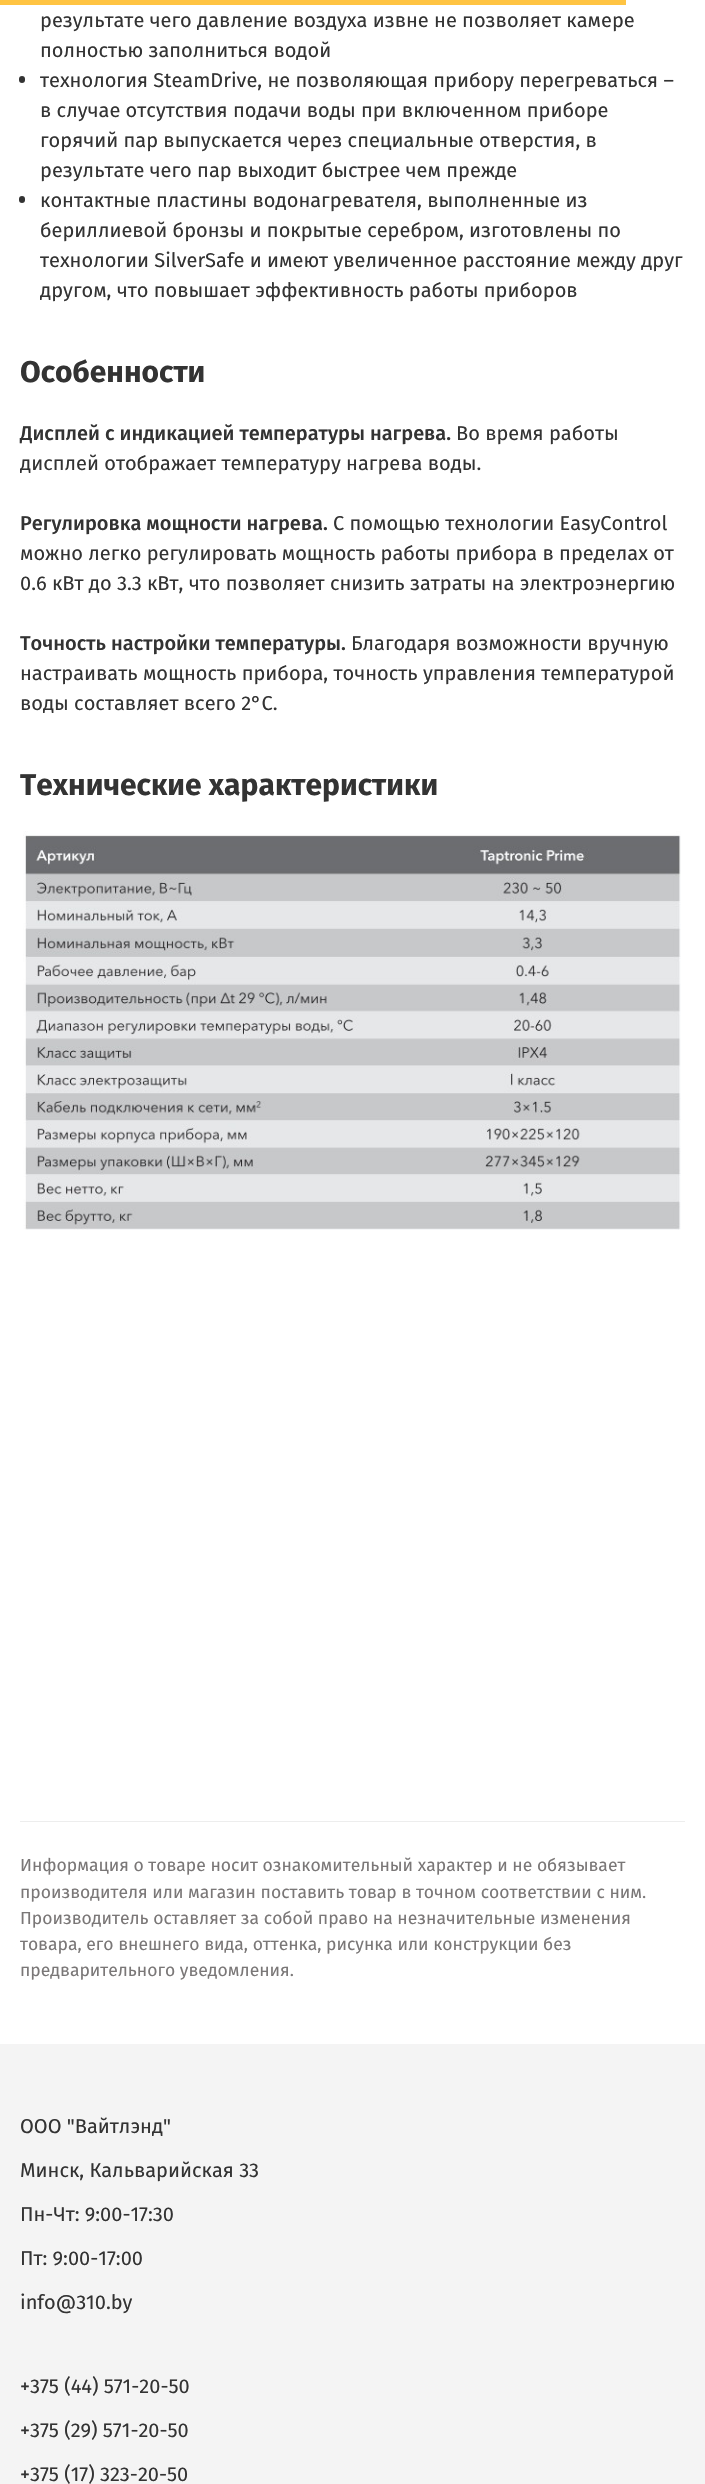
void draw(SkCanvas* canvas) {
	SkPaint paint;
	paint.setAntiAlias(true);
	canvas->clear(0xffffffff);
	paint.setColor(0xffffc443);
	canvas->drawRect(SkRect::MakeXYWH(0, 0, 626, 5), paint);
	SkFont f1(fontMgr->matchFamilyStyle("Fira Sans", SkFontStyle::Normal()), 20);
	f1.setSubpixel(true);
	paint.setColor(0xff333333);
	canvas->drawString("результате чего давление воздуха извне не позволяет камере", 40, 27, f1, paint);
	canvas->drawString("полностью заполниться водой", 40, 57, f1, paint);
	canvas->drawRoundRect(SkRect::MakeXYWH(19, 76, 6, 7), 3, 3, paint);
	canvas->drawString("технология SteamDrive, не позволяющая прибору перегреваться –", 40, 87, f1, paint);
	canvas->drawString("в случае отсутствия подачи воды при включенном приборе", 40, 117, f1, paint);
	canvas->drawString("горячий пар выпускается через специальные отверстия, в", 40, 147, f1, paint);
	canvas->drawString("результате чего пар выходит быстрее чем прежде", 40, 177, f1, paint);
	canvas->drawRoundRect(SkRect::MakeXYWH(19, 196, 6, 7), 3, 3, paint);
	canvas->drawString("контактные пластины водонагревателя, выполненные из", 40, 207, f1, paint);
	canvas->drawString("бериллиевой бронзы и покрытые серебром, изготовлены по", 40, 237, f1, paint);
	canvas->drawString("технологии SilverSafe и имеют увеличенное расстояние между друг", 40, 267, f1, paint);
	canvas->drawString("другом, что повышает эффективность работы приборов", 40, 297, f1, paint);
	SkFont f2(fontMgr->matchFamilyStyle("Fira Sans", SkFontStyle::Bold()), 30);
	f2.setSubpixel(true);
	canvas->drawString("Особенности", 20, 382, f2, paint);
	SkFont f3(fontMgr->matchFamilyStyle("Fira Sans", SkFontStyle(500, SkFontStyle::kNormal_Width, SkFontStyle::kUpright_Slant)), 20);
	f3.setSubpixel(true);
	canvas->drawString("Дисплей с индикацией температуры нагрева.", 20, 440, f3, paint);
	canvas->drawString("Во время работы", 456, 440, f1, paint);
	canvas->drawString("дисплей отображает температуру нагрева воды.", 20, 470, f1, paint);
	canvas->drawString("Регулировка мощности нагрева.", 20, 530, f3, paint);
	canvas->drawString("С помощью технологии EasyControl", 333, 530, f1, paint);
	canvas->drawString("можно легко регулировать мощность работы прибора в пределах от", 20, 560, f1, paint);
	canvas->drawString("0.6 кВт до 3.3 кВт, что позволяет снизить затраты на электроэнергию", 20, 590, f1, paint);
	canvas->drawString("Точность настройки температуры.", 20, 650, f3, paint);
	canvas->drawString("Благодаря возможности вручную", 351, 650, f1, paint);
	canvas->drawString("настраивать мощность прибора, точность управления температурой", 20, 680, f1, paint);
	canvas->drawString("воды составляет всего 2°С.", 20, 710, f1, paint);
	canvas->drawString("Технические характеристики", 20, 795, f2, paint);
	canvas->drawImageRect(SkImages::DeferredFromEncodedData(SkData::MakeFromFileName("img1.png")), SkRect::MakeXYWH(23, 831, 658, 399), SkSamplingOptions());
	paint.setColor(0xffededed);
	canvas->drawRect(SkRect::MakeXYWH(20, 1821, 665, 1), paint);
	SkFont f4(fontMgr->matchFamilyStyle("Fira Sans", SkFontStyle::Normal()), 17.5);
	f4.setSubpixel(true);
	paint.setColor(0xff7a7777);
	canvas->drawString("Информация о товаре носит ознакомительный характер и не обязывает", 20, 1871, f4, paint);
	canvas->drawString("производителя или магазин поставить товар в точном соответствии с ним.", 20, 1898, f4, paint);
	canvas->drawString("Производитель оставляет за собой право на незначительные изменения", 20, 1924, f4, paint);
	canvas->drawString("товара, его внешнего вида, оттенка, рисунка или конструкции без", 20, 1950, f4, paint);
	canvas->drawString("предварительного уведомления.", 20, 1976, f4, paint);
	paint.setColor(0xfff4f4f4);
	canvas->drawRect(SkRect::MakeXYWH(0, 2044, 705, 440), paint);
	paint.setColor(0xff333333);
	canvas->drawString("ООО \"Вайтлэнд\"", 20, 2133, f1, paint);
	canvas->drawString("Минск, Кальварийская 33", 20, 2177, f1, paint);
	canvas->drawString("Пн-Чт: 9:00-17:30", 20, 2221, f1, paint);
	canvas->drawString("Пт: 9:00-17:00", 20, 2265, f1, paint);
	canvas->drawString("info@310.by", 20, 2309, f1, paint);
	canvas->drawString("+375 (44) 571-20-50", 20, 2393, f1, paint);
	canvas->drawString("+375 (29) 571-20-50", 20, 2437, f1, paint);
	canvas->drawString("+375 (17) 323-20-50", 20, 2481, f1, paint);
}
